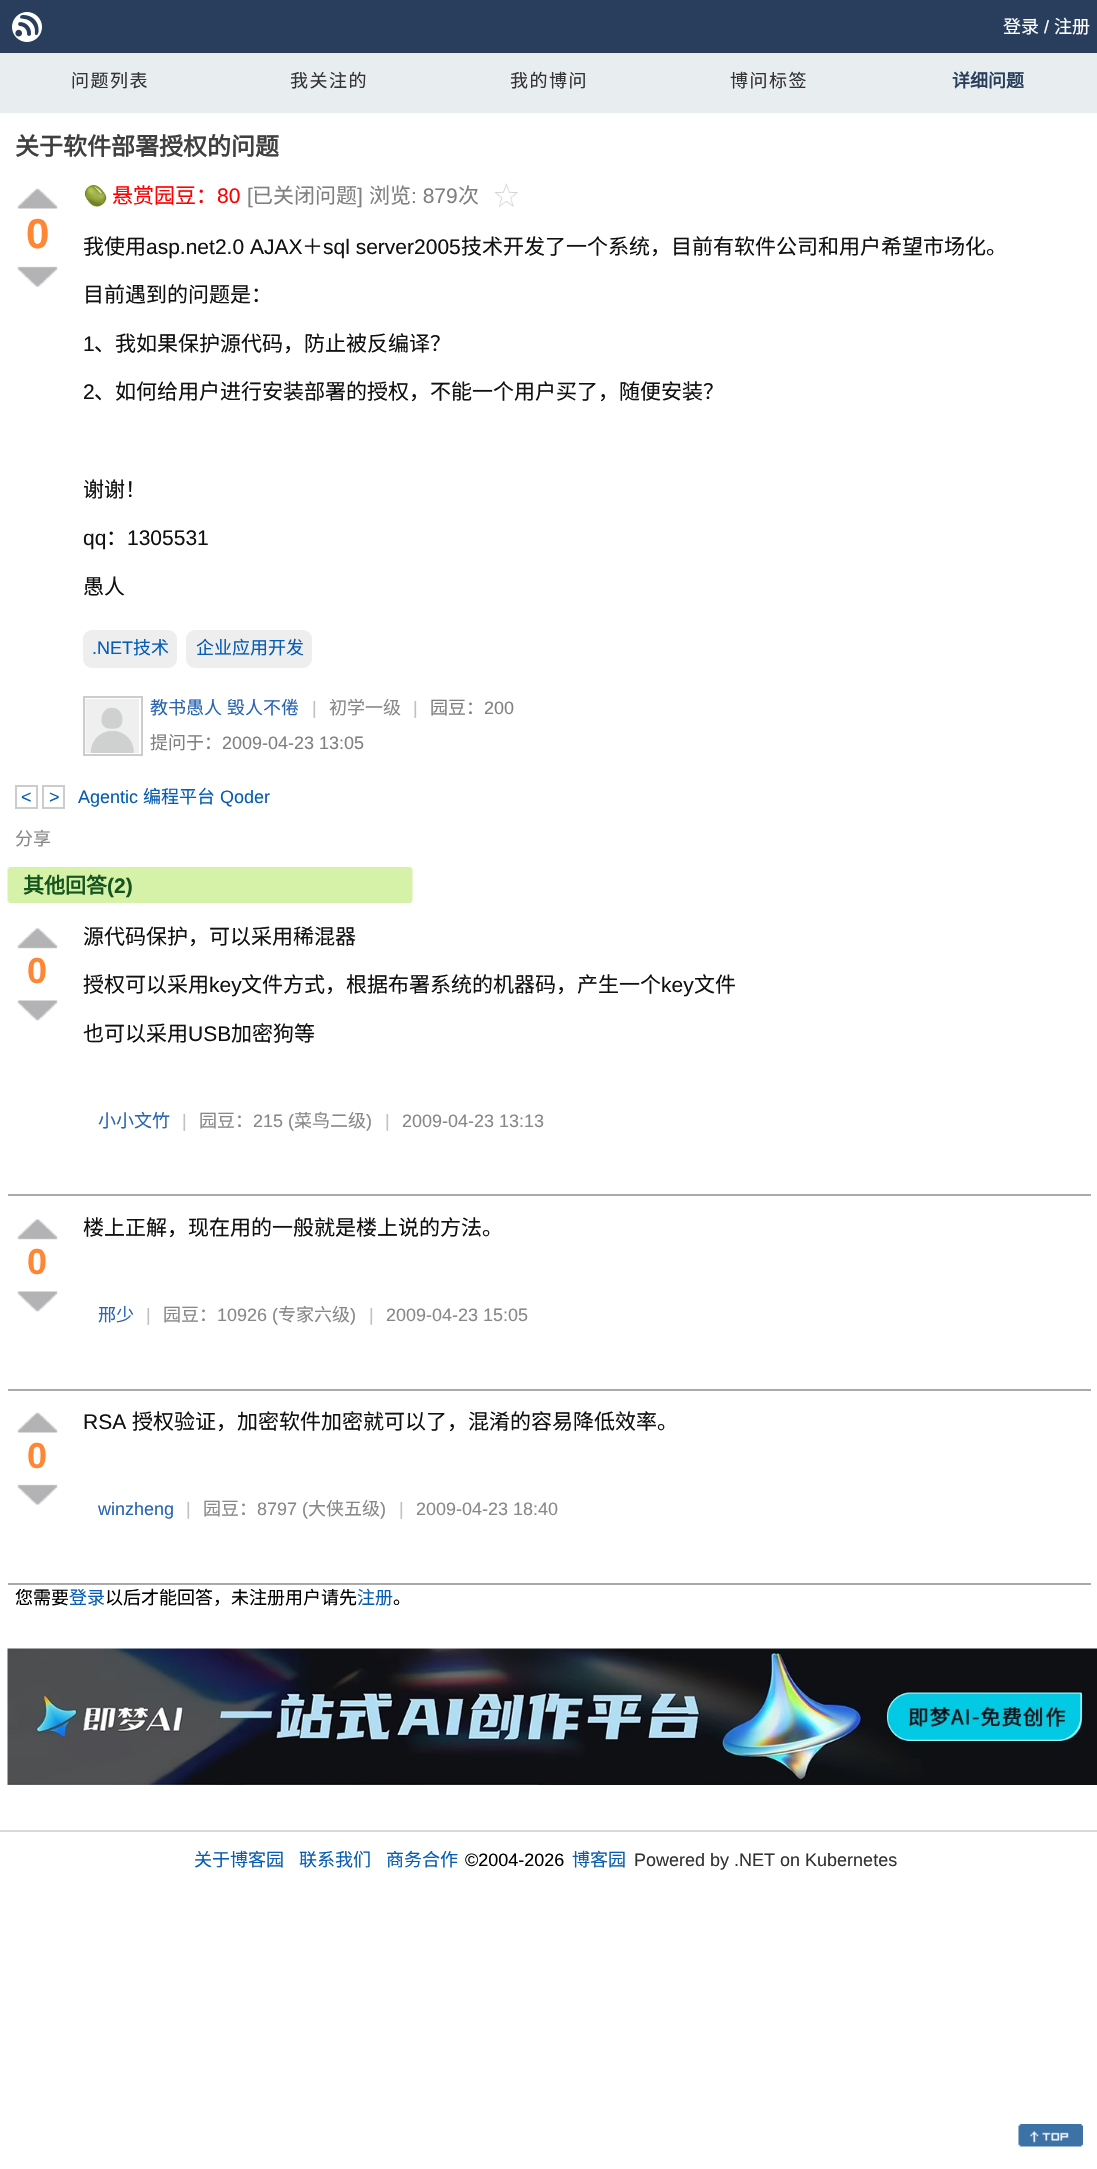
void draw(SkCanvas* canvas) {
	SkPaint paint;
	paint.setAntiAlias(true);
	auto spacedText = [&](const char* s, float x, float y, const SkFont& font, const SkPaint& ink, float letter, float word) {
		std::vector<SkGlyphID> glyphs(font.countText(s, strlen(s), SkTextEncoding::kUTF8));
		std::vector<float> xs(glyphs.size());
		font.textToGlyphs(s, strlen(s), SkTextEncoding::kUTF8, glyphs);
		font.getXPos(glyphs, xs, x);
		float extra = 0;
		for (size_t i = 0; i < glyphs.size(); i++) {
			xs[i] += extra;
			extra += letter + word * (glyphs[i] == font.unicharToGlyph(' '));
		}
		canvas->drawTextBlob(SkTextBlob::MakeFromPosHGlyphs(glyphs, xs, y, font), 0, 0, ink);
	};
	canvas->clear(0xffffffff);
	paint.setColor(0xff283e5c);
	canvas->drawRect(SkRect::MakeXYWH(0, 0, 1097, 53), paint);
	canvas->drawImageRect(SkImages::DeferredFromEncodedData(SkData::MakeFromFileName("img1.png")), SkRect::MakeXYWH(12, 12, 30, 30), SkSamplingOptions());
	SkFont f1(fontMgr->matchFamilyStyle("Noto Sans CJK SC", SkFontStyle::Normal()), 18);
	f1.setSubpixel(true);
	paint.setColor(0xffffffff);
	canvas->drawString("登录", 1003, 33, f1, paint);
	SkFont f2(fontMgr->matchFamilyStyle("Liberation Sans", SkFontStyle::Normal()), 18);
	f2.setSubpixel(true);
	canvas->drawString("/", 1044, 33, f2, paint);
	canvas->drawString("注册", 1054, 33, f1, paint);
	paint.setColor(0xffe8edf0);
	canvas->drawRect(SkRect::MakeXYWH(0, 53, 1097, 60), paint);
	paint.setColor(0xff333333);
	spacedText("问题列表", 71, 87, f1, paint, 1.5, 0);
	spacedText("我关注的", 290, 87, f1, paint, 1.5, 0);
	spacedText("我的博问", 510, 87, f1, paint, 1.5, 0);
	spacedText("博问标签", 730, 87, f1, paint, 1.5, 0);
	SkFont f3(fontMgr->matchFamilyStyle("Noto Sans CJK SC", SkFontStyle::Bold()), 18);
	f3.setSubpixel(true);
	paint.setColor(0xff283e5c);
	canvas->drawString("详细问题", 952, 87, f3, paint);
	SkFont f4(fontMgr->matchFamilyStyle("Noto Sans CJK SC", SkFontStyle::Bold()), 24);
	f4.setSubpixel(true);
	paint.setColor(0xff404040);
	canvas->drawString("关于软件部署授权的问题", 15, 155, f4, paint);
	canvas->drawImageRect(SkImages::DeferredFromEncodedData(SkData::MakeFromFileName("img2.png")), SkRect::MakeXYWH(17, 188, 41, 21), SkSamplingOptions());
	SkFont f5(fontMgr->matchFamilyStyle("Liberation Sans", SkFontStyle::Bold()), 42);
	f5.setSubpixel(true);
	paint.setColor(0xffff8635);
	canvas->drawString("0", 26, 248, f5, paint);
	canvas->drawImageRect(SkImages::DeferredFromEncodedData(SkData::MakeFromFileName("img3.png")), SkRect::MakeXYWH(17, 266, 41, 21), SkSamplingOptions());
	canvas->drawImageRect(SkImages::DeferredFromEncodedData(SkData::MakeFromFileName("img4.png")), SkRect::MakeXYWH(84, 185, 23, 22), SkSamplingOptions());
	SkFont f6(fontMgr->matchFamilyStyle("Noto Sans CJK SC", SkFontStyle::Normal()), 21);
	f6.setSubpixel(true);
	paint.setColor(0xffff0000);
	canvas->drawString("悬赏园豆：", 112, 203, f6, paint);
	SkFont f7(fontMgr->matchFamilyStyle("Liberation Sans", SkFontStyle::Normal()), 21);
	f7.setSubpixel(true);
	canvas->drawString("80", 217, 203, f7, paint);
	paint.setColor(0xff808080);
	canvas->drawString("[", 247, 203, f7, paint);
	canvas->drawString("已关闭问题", 252, 203, f6, paint);
	canvas->drawString("]", 357, 203, f7, paint);
	canvas->drawString("浏览", 369, 203, f6, paint);
	canvas->drawString(": 879", 411, 203, f7, paint);
	canvas->drawString("次", 458, 203, f6, paint);
	canvas->drawImageRect(SkImages::DeferredFromEncodedData(SkData::MakeFromFileName("img5.png")), SkRect::MakeXYWH(494, 183, 24, 24), SkSamplingOptions());
	paint.setColor(0xff111111);
	canvas->drawString("我使用", 83, 254, f6, paint);
	canvas->drawString("asp.net2.0 AJAX", 146, 254, f7, paint);
	canvas->drawString("＋", 302, 254, f6, paint);
	canvas->drawString("sql server2005", 323, 254, f7, paint);
	canvas->drawString("技术开发了一个系统，目前有软件公司和用户希望市场化。", 461, 254, f6, paint);
	canvas->drawString("目前遇到的问题是：", 83, 302, f6, paint);
	canvas->drawString("1", 83, 351, f7, paint);
	canvas->drawString("、我如果保护源代码，防止被反编译？", 94, 351, f6, paint);
	canvas->drawString("2", 83, 399, f7, paint);
	canvas->drawString("、如何给用户进行安装部署的授权，不能一个用户买了，随便安装？", 94, 399, f6, paint);
	canvas->drawString("谢谢！", 83, 497, f6, paint);
	canvas->drawString("qq", 83, 545, f7, paint);
	canvas->drawString("：", 106, 545, f6, paint);
	canvas->drawString("1305531", 127, 545, f7, paint);
	canvas->drawString("愚人", 83, 594, f6, paint);
	paint.setColor(0xffeeeeee);
	canvas->drawRoundRect(SkRect::MakeXYWH(83, 630, 94, 38), 9, 9, paint);
	paint.setColor(0xff075db3);
	canvas->drawString(".NET", 92, 654, f2, paint);
	canvas->drawString("技术", 133, 654, f1, paint);
	paint.setColor(0xffeeeeee);
	canvas->drawRoundRect(SkRect::MakeXYWH(186, 630, 126, 38), 9, 9, paint);
	paint.setColor(0xff075db3);
	canvas->drawString("企业应用开发", 196, 654, f1, paint);
	paint.setStroke(true);
	paint.setStrokeWidth(2);
	paint.setColor(0xffcccccc);
	canvas->drawRect(SkRect::MakeXYWH(84, 697, 58, 58), paint);
	canvas->drawImageRect(SkImages::DeferredFromEncodedData(SkData::MakeFromFileName("img6.png")), SkRect::MakeXYWH(85, 699, 54, 54), SkSamplingOptions());
	paint.setStroke(false);
	paint.setColor(0xff2965b1);
	spacedText("教书愚人 毁人不倦", 150, 714, f1, paint, 0, 1);
	paint.setColor(0xffc1c1c1);
	canvas->drawString("|", 312, 714, f2, paint);
	paint.setColor(0xff888888);
	canvas->drawString("初学一级", 329, 714, f1, paint);
	paint.setColor(0xffc1c1c1);
	canvas->drawString("|", 413, 714, f2, paint);
	paint.setColor(0xff808080);
	canvas->drawString("园豆：", 430, 714, f1, paint);
	canvas->drawString("200", 484, 714, f2, paint);
	canvas->drawString("提问于：", 150, 749, f1, paint);
	canvas->drawString("2009-04-23 13:05", 222, 749, f2, paint);
	paint.setStroke(true);
	paint.setColor(0xffcccccc);
	canvas->drawRect(SkRect::MakeXYWH(16, 786, 21, 22), paint);
	paint.setStroke(false);
	paint.setColor(0xff075db3);
	canvas->drawString("<", 21, 803, f2, paint);
	paint.setStroke(true);
	paint.setColor(0xffcccccc);
	canvas->drawRect(SkRect::MakeXYWH(43, 786, 21, 22), paint);
	paint.setStroke(false);
	paint.setColor(0xff075db3);
	canvas->drawString(">", 49, 803, f2, paint);
	canvas->drawString("Agentic", 78, 803, f2, paint);
	canvas->drawString("编程平台", 143, 803, f1, paint);
	canvas->drawString("Qoder", 220, 803, f2, paint);
	paint.setColor(0xff888888);
	canvas->drawString("分享", 15, 845, f1, paint);
	canvas->drawImageRect(SkImages::DeferredFromEncodedData(SkData::MakeFromFileName("img7.png")), SkRect::MakeXYWH(7, 867, 406, 36), SkSamplingOptions());
	SkFont f8(fontMgr->matchFamilyStyle("Noto Sans CJK SC", SkFontStyle::Bold()), 21);
	f8.setSubpixel(true);
	paint.setColor(0xff15551e);
	canvas->drawString("其他回答", 23, 893, f8, paint);
	SkFont f9(fontMgr->matchFamilyStyle("Liberation Sans", SkFontStyle::Bold()), 21);
	f9.setSubpixel(true);
	canvas->drawString("(2)", 107, 893, f9, paint);
	paint.setColor(0xffaaaaaa);
	canvas->drawRect(SkRect::MakeXYWH(8, 1194, 1083, 2), paint);
	canvas->drawImageRect(SkImages::DeferredFromEncodedData(SkData::MakeFromFileName("img8.png")), SkRect::MakeXYWH(17, 928, 41, 21), SkSamplingOptions());
	SkFont f10(fontMgr->matchFamilyStyle("Liberation Sans", SkFontStyle::Bold()), 36);
	f10.setSubpixel(true);
	paint.setColor(0xffff8635);
	canvas->drawString("0", 27, 983, f10, paint);
	canvas->drawImageRect(SkImages::DeferredFromEncodedData(SkData::MakeFromFileName("img9.png")), SkRect::MakeXYWH(17, 1000, 41, 21), SkSamplingOptions());
	paint.setColor(0xff111111);
	canvas->drawString("源代码保护，可以采用稀混器", 83, 944, f6, paint);
	canvas->drawString("授权可以采用", 83, 992, f6, paint);
	canvas->drawString("key", 209, 992, f7, paint);
	canvas->drawString("文件方式，根据布署系统的机器码，产生一个", 241, 992, f6, paint);
	canvas->drawString("key", 661, 992, f7, paint);
	canvas->drawString("文件", 694, 992, f6, paint);
	canvas->drawString("也可以采用", 83, 1041, f6, paint);
	canvas->drawString("USB", 188, 1041, f7, paint);
	canvas->drawString("加密狗等", 231, 1041, f6, paint);
	paint.setColor(0xff2965b1);
	canvas->drawString("小小文竹", 98, 1127, f1, paint);
	paint.setColor(0xffc1c1c1);
	canvas->drawString("|", 182, 1127, f2, paint);
	paint.setColor(0xff888888);
	canvas->drawString("园豆：", 199, 1127, f1, paint);
	canvas->drawString("215 (", 253, 1127, f2, paint);
	canvas->drawString("菜鸟二级", 294, 1127, f1, paint);
	canvas->drawString(")", 366, 1127, f2, paint);
	paint.setColor(0xffc1c1c1);
	canvas->drawString("|", 385, 1127, f2, paint);
	paint.setColor(0xff888888);
	canvas->drawString("2009-04-23 13:13", 402, 1127, f2, paint);
	paint.setColor(0xffaaaaaa);
	canvas->drawRect(SkRect::MakeXYWH(8, 1389, 1083, 2), paint);
	canvas->drawImageRect(SkImages::DeferredFromEncodedData(SkData::MakeFromFileName("img8.png")), SkRect::MakeXYWH(17, 1219, 41, 21), SkSamplingOptions());
	paint.setColor(0xffff8635);
	canvas->drawString("0", 27, 1274, f10, paint);
	canvas->drawImageRect(SkImages::DeferredFromEncodedData(SkData::MakeFromFileName("img9.png")), SkRect::MakeXYWH(17, 1291, 41, 21), SkSamplingOptions());
	paint.setColor(0xff111111);
	canvas->drawString("楼上正解，现在用的一般就是楼上说的方法。", 83, 1235, f6, paint);
	paint.setColor(0xff2965b1);
	canvas->drawString("邢少", 98, 1321, f1, paint);
	paint.setColor(0xffc1c1c1);
	canvas->drawString("|", 146, 1321, f2, paint);
	paint.setColor(0xff888888);
	canvas->drawString("园豆：", 163, 1321, f1, paint);
	canvas->drawString("10926 (", 217, 1321, f2, paint);
	canvas->drawString("专家六级", 278, 1321, f1, paint);
	canvas->drawString(")", 350, 1321, f2, paint);
	paint.setColor(0xffc1c1c1);
	canvas->drawString("|", 369, 1321, f2, paint);
	paint.setColor(0xff888888);
	canvas->drawString("2009-04-23 15:05", 386, 1321, f2, paint);
	paint.setColor(0xffaaaaaa);
	canvas->drawRect(SkRect::MakeXYWH(8, 1583, 1083, 2), paint);
	canvas->drawImageRect(SkImages::DeferredFromEncodedData(SkData::MakeFromFileName("img2.png")), SkRect::MakeXYWH(17, 1412, 41, 21), SkSamplingOptions());
	paint.setColor(0xffff8635);
	canvas->drawString("0", 27, 1468, f10, paint);
	canvas->drawImageRect(SkImages::DeferredFromEncodedData(SkData::MakeFromFileName("img3.png")), SkRect::MakeXYWH(17, 1484, 41, 21), SkSamplingOptions());
	paint.setColor(0xff111111);
	canvas->drawString("RSA", 83, 1429, f7, paint);
	canvas->drawString("授权验证，加密软件加密就可以了，混淆的容易降低效率。", 132, 1429, f6, paint);
	paint.setColor(0xff2965b1);
	canvas->drawString("winzheng", 98, 1515, f2, paint);
	paint.setColor(0xffc1c1c1);
	canvas->drawString("|", 186, 1515, f2, paint);
	paint.setColor(0xff888888);
	canvas->drawString("园豆：", 203, 1515, f1, paint);
	canvas->drawString("8797 (", 257, 1515, f2, paint);
	canvas->drawString("大侠五级", 308, 1515, f1, paint);
	canvas->drawString(")", 380, 1515, f2, paint);
	paint.setColor(0xffc1c1c1);
	canvas->drawString("|", 399, 1515, f2, paint);
	paint.setColor(0xff888888);
	canvas->drawString("2009-04-23 18:40", 416, 1515, f2, paint);
	paint.setColor(0xff000000);
	canvas->drawString("您需要", 15, 1604, f1, paint);
	paint.setColor(0xff075db3);
	canvas->drawString("登录", 69, 1604, f1, paint);
	paint.setColor(0xff000000);
	canvas->drawString("以后才能回答，未注册用户请先", 105, 1604, f1, paint);
	paint.setColor(0xff075db3);
	canvas->drawString("注册", 357, 1604, f1, paint);
	paint.setColor(0xff000000);
	canvas->drawString("。", 393, 1604, f1, paint);
	canvas->drawImageRect(SkImages::DeferredFromEncodedData(SkData::MakeFromFileName("img10.png")), SkRect::MakeXYWH(7, 1648, 1090, 137), SkSamplingOptions());
	paint.setColor(0xffd6d9de);
	canvas->drawRect(SkRect::MakeXYWH(0, 1830, 1097, 2), paint);
	paint.setColor(0xff075db3);
	canvas->drawString("关于博客园", 194, 1866, f1, paint);
	canvas->drawString("联系我们", 299, 1866, f1, paint);
	canvas->drawString("商务合作", 386, 1866, f1, paint);
	paint.setColor(0xff000000);
	canvas->drawString("©2004-2026", 465, 1866, f2, paint);
	paint.setColor(0xff075db3);
	canvas->drawString("博客园", 572, 1866, f1, paint);
	paint.setColor(0xff333333);
	canvas->drawString("Powered by .NET on Kubernetes", 634, 1866, f2, paint);
	canvas->drawImageRect(SkImages::DeferredFromEncodedData(SkData::MakeFromFileName("img11.png")), SkRect::MakeXYWH(1018, 2124, 65, 23), SkSamplingOptions());
}
